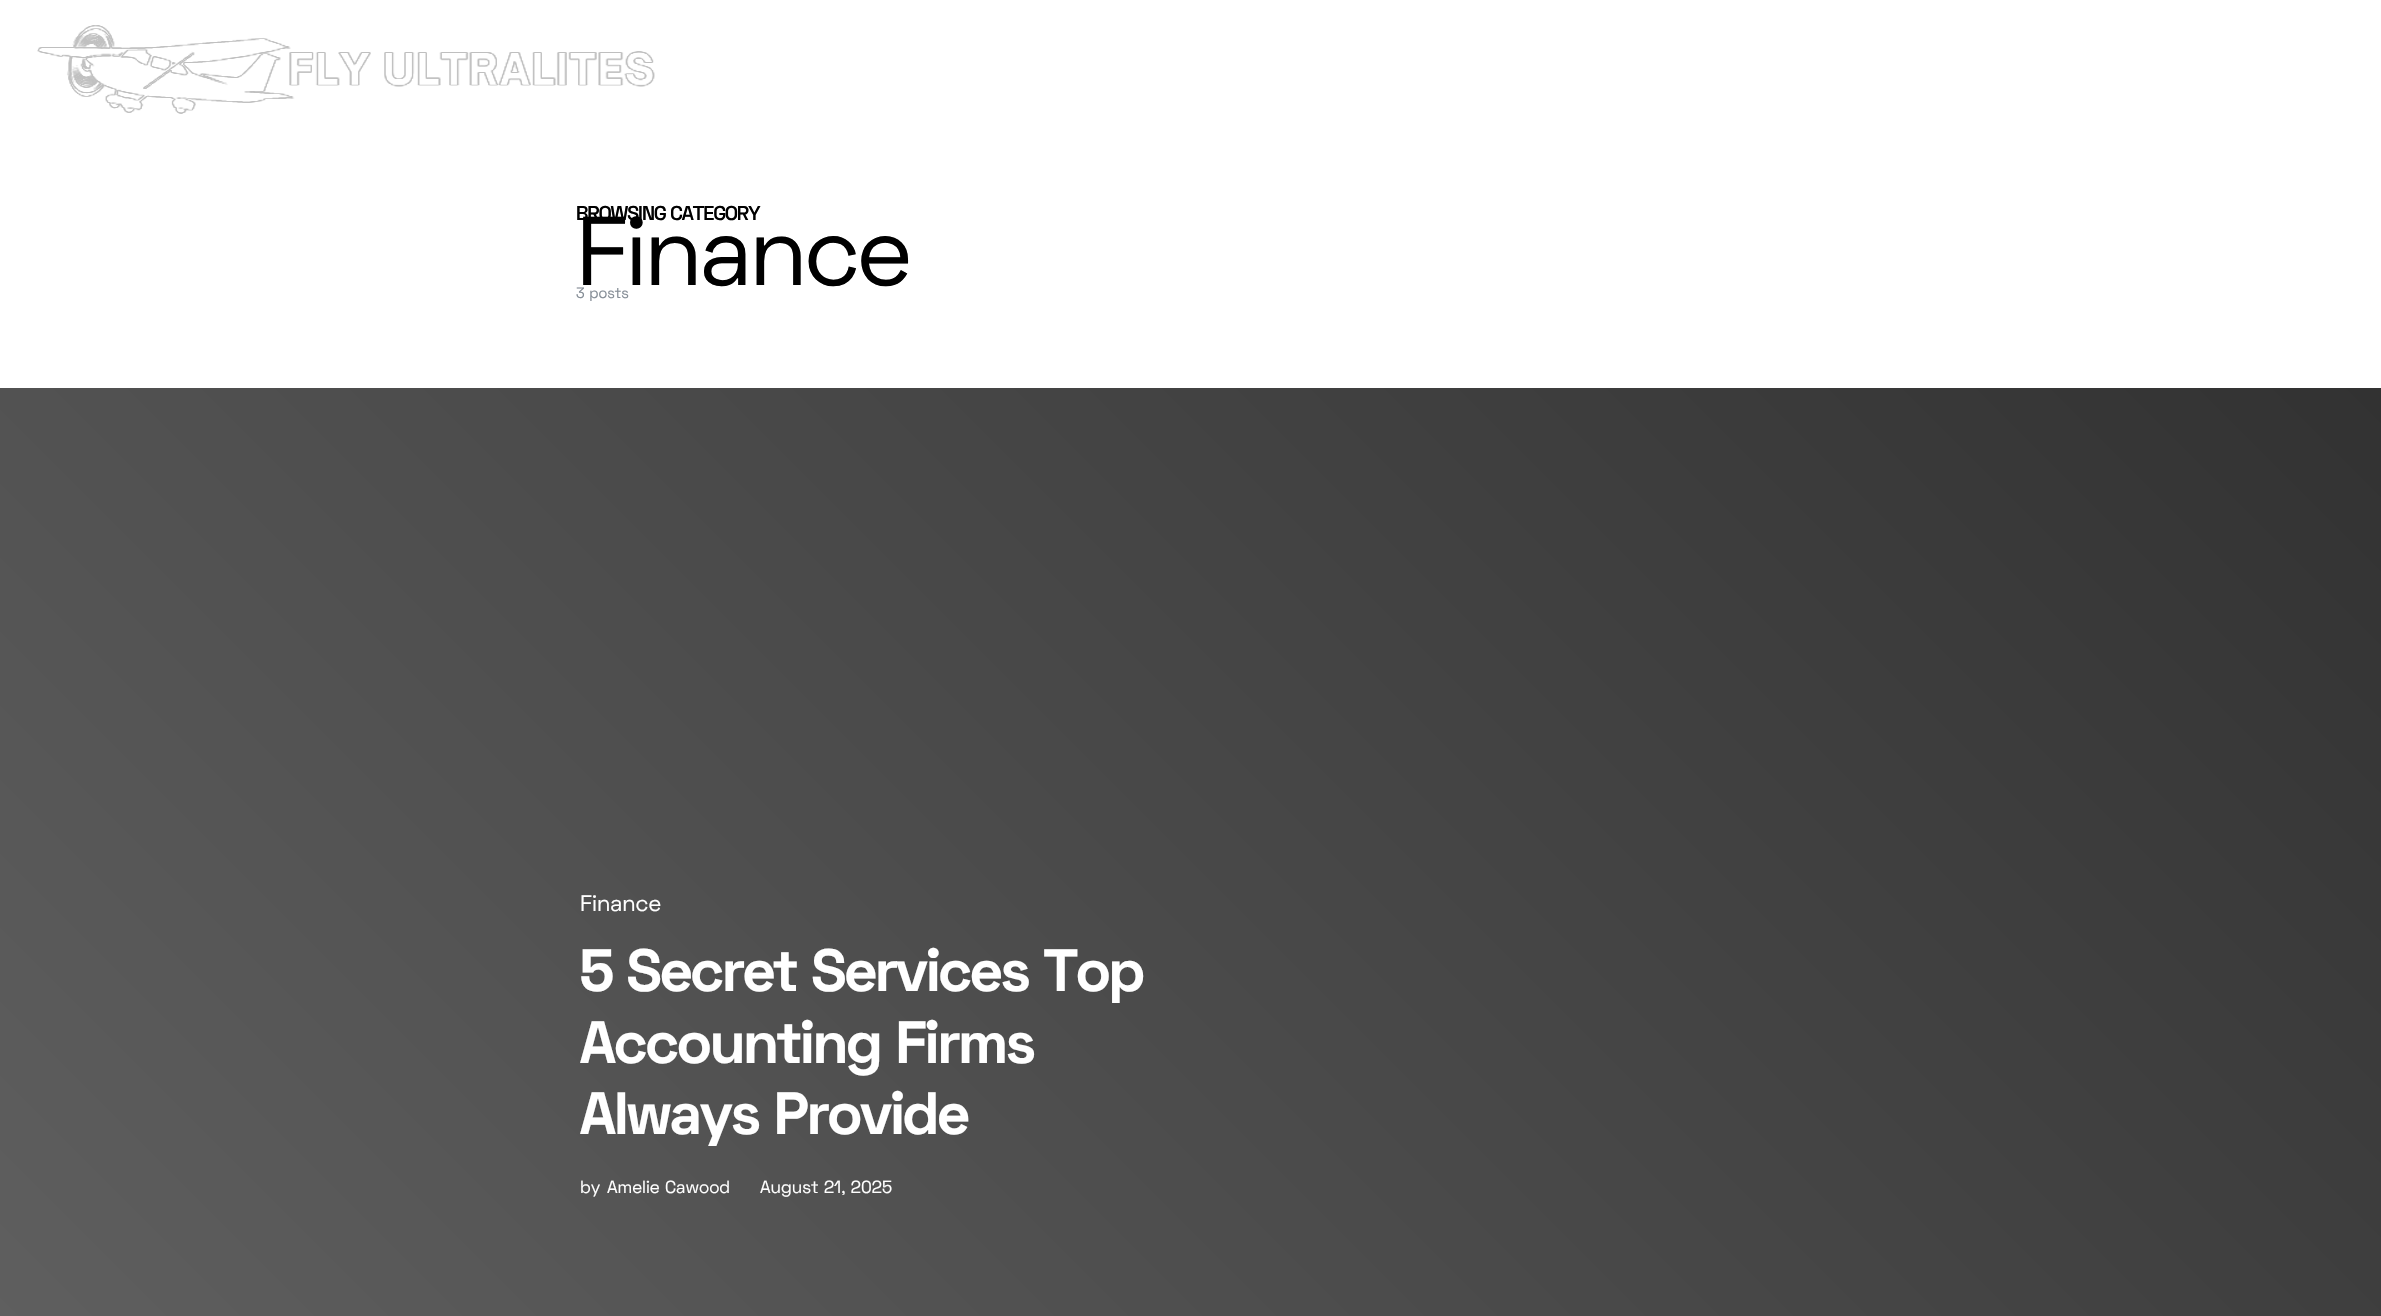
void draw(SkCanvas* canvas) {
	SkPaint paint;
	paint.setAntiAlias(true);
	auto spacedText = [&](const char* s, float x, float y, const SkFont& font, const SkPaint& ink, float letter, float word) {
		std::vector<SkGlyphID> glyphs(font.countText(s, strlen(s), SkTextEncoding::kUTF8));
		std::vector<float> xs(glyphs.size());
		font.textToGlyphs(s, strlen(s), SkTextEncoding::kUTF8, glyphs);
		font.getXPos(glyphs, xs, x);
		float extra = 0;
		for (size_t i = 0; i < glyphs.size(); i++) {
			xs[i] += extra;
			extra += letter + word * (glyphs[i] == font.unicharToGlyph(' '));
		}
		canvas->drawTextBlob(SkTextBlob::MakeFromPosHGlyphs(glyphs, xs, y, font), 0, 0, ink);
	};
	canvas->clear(0xffffffff);
	canvas->drawImageRect(SkImages::DeferredFromEncodedData(SkData::MakeFromFileName("img1.png")), SkRect::MakeXYWH(37, 25, 618, 89), SkSamplingOptions());
	canvas->drawImageRect(SkImages::DeferredFromEncodedData(SkData::MakeFromFileName("img2.png")), SkRect::MakeXYWH(38, 25, 616, 89), SkSamplingOptions());
	SkFont f1(fontMgr->matchFamilyStyle("Space Grotesk", SkFontStyle(600, SkFontStyle::kNormal_Width, SkFontStyle::kUpright_Slant)), 20);
	f1.setSubpixel(true);
	paint.setColor(0xff000000);
	spacedText("BROWSING CATEGORY", 576, 220, f1, paint, -1, 0);
	SkFont f2(fontMgr->matchFamilyStyle("Space Grotesk", SkFontStyle::Normal()), 97.5);
	f2.setSubpixel(true);
	spacedText("Finance", 576, 285, f2, paint, -2.5, 0);
	SkFont f3(fontMgr->matchFamilyStyle("Space Grotesk", SkFontStyle::Normal()), 15);
	f3.setSubpixel(true);
	paint.setColor(0xff868e97);
	canvas->drawString("3 posts", 576, 298, f3, paint);
	{
		const SkColor colors[] = {0xff646464, 0xff323232};
		const float stops[] = {0, 1};
		const SkPoint ends[] = {{266, 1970}, {2115, 121}};
		paint.setShader(SkGradientShader::MakeLinear(ends, colors, stops, 2, SkTileMode::kClamp));
		paint.setAlpha(255);
	}
	canvas->drawRect(SkRect::MakeXYWH(0, 388, 2381, 928), paint);
	SkFont f4(fontMgr->matchFamilyStyle("Space Grotesk", SkFontStyle::Normal()), 22.5);
	f4.setSubpixel(true);
	paint.setShader(nullptr);
	paint.setColor(0xffffffff);
	canvas->drawString("Finance", 580, 911, f4, paint);
	SkFont f5(fontMgr->matchFamilyStyle("Space Grotesk", SkFontStyle::Bold()), 59.5);
	f5.setSubpixel(true);
	spacedText("5 Secret Services Top", 580, 991, f5, paint, -1.5, 0);
	spacedText("Accounting Firms", 580, 1063, f5, paint, -1.5, 0);
	spacedText("Always Provide", 580, 1134, f5, paint, -1.5, 0);
	SkFont f6(fontMgr->matchFamilyStyle("Space Grotesk", SkFontStyle::Normal()), 17.5);
	f6.setSubpixel(true);
	canvas->drawString("by", 580, 1193, f6, paint);
	canvas->drawString("Amelie Cawood", 607, 1193, f6, paint);
	canvas->drawString("August 21, 2025", 760, 1193, f6, paint);
}
